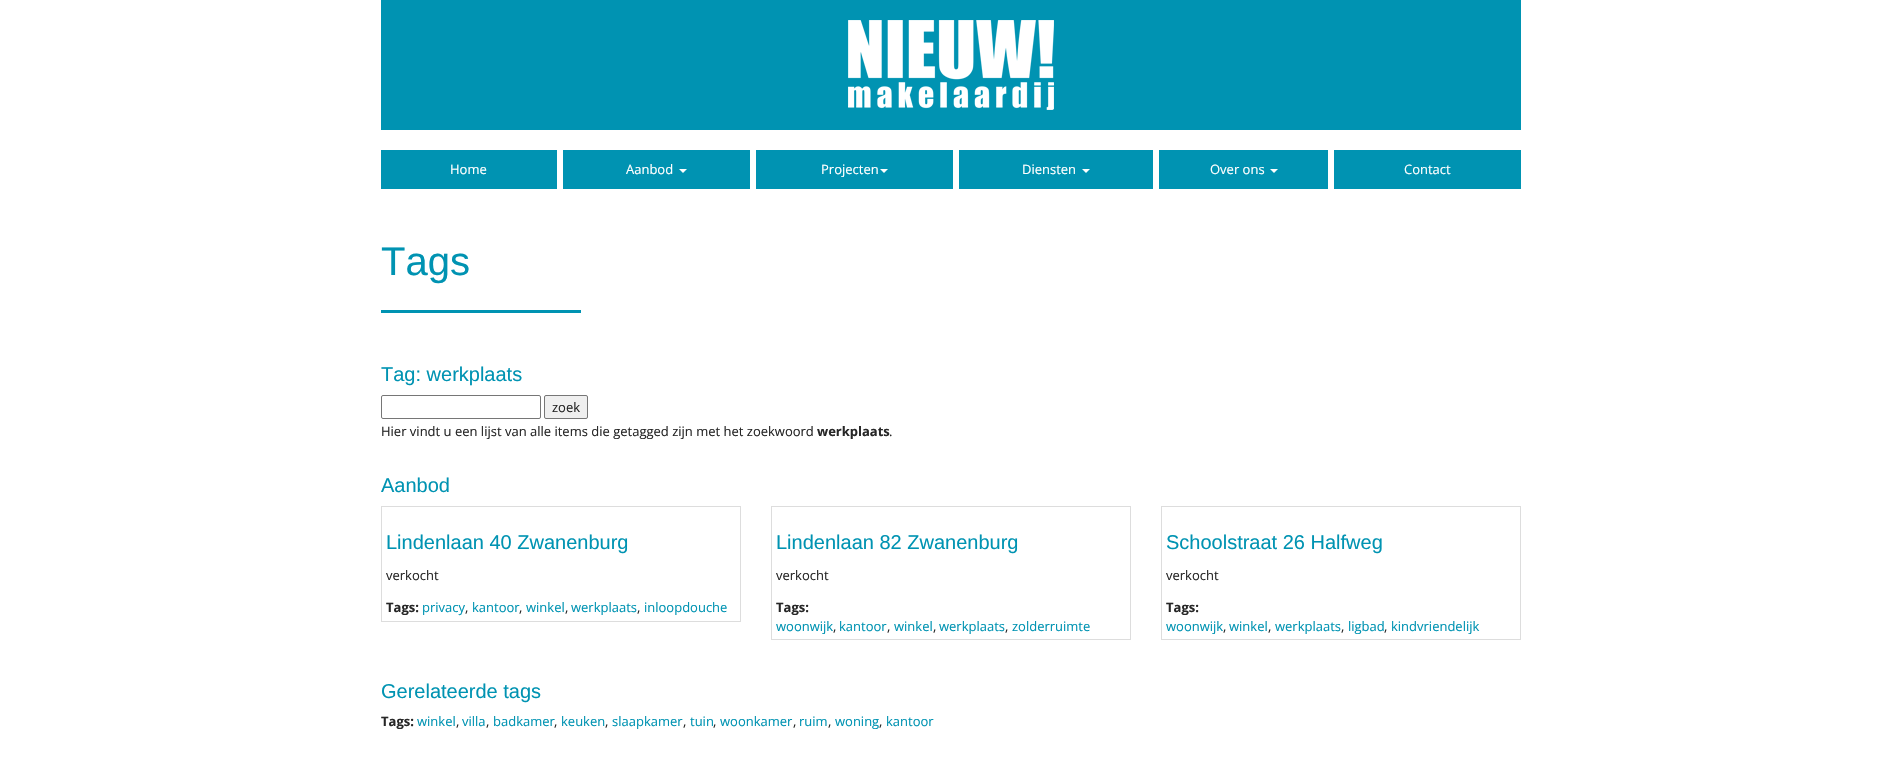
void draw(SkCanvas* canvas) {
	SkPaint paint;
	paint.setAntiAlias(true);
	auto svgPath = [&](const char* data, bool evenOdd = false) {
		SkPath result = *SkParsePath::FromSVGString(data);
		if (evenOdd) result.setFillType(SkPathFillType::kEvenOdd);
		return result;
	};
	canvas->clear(0xffffffff);
	paint.setColor(0xff0093b2);
	canvas->drawRect(SkRect::MakeXYWH(381, 0, 1140, 130), paint);
	canvas->drawImageRect(SkImages::DeferredFromEncodedData(SkData::MakeFromFileName("img1.png")), SkRect::MakeXYWH(848, 20, 206, 90), SkSamplingOptions());
	canvas->drawRect(SkRect::MakeXYWH(381, 150, 176, 39), paint);
	SkFont f1(fontMgr->matchFamilyStyle("Open Sans", SkFontStyle::Normal()), 13);
	f1.setSubpixel(true);
	paint.setColor(0xffffffff);
	canvas->drawString("Home", 450, 174, f1, paint);
	paint.setColor(0xff0093b2);
	canvas->drawRect(SkRect::MakeXYWH(563, 150, 187, 39), paint);
	paint.setColor(0xffffffff);
	canvas->drawString("Aanbod", 626, 174, f1, paint);
	canvas->drawPath(svgPath("M679 169H687L683 173Z"), paint);
	paint.setColor(0xff0093b2);
	canvas->drawRect(SkRect::MakeXYWH(756, 150, 197, 39), paint);
	paint.setColor(0xffffffff);
	canvas->drawString("Projecten", 821, 174, f1, paint);
	canvas->drawPath(svgPath("M880 169H888L884 173Z"), paint);
	paint.setColor(0xff0093b2);
	canvas->drawRect(SkRect::MakeXYWH(959, 150, 194, 39), paint);
	paint.setColor(0xffffffff);
	canvas->drawString("Diensten", 1022, 174, f1, paint);
	canvas->drawPath(svgPath("M1082 169H1090L1086 173Z"), paint);
	paint.setColor(0xff0093b2);
	canvas->drawRect(SkRect::MakeXYWH(1159, 150, 169, 39), paint);
	paint.setColor(0xffffffff);
	canvas->drawString("Over ons", 1210, 174, f1, paint);
	canvas->drawPath(svgPath("M1270 169H1278L1274 173Z"), paint);
	paint.setColor(0xff0093b2);
	canvas->drawRect(SkRect::MakeXYWH(1334, 150, 187, 39), paint);
	paint.setColor(0xffffffff);
	canvas->drawString("Contact", 1404, 174, f1, paint);
	SkFont f2(fontMgr->matchFamilyStyle("Liberation Sans", SkFontStyle::Normal()), 40);
	f2.setSubpixel(true);
	paint.setColor(0xff0093b2);
	canvas->drawString("Tags", 381, 275, f2, paint);
	canvas->drawRect(SkRect::MakeXYWH(381, 310, 200, 3), paint);
	SkFont f3(fontMgr->matchFamilyStyle("Liberation Sans", SkFontStyle::Normal()), 20);
	f3.setSubpixel(true);
	canvas->drawString("Tag: werkplaats", 381, 381, f3, paint);
	paint.setStroke(true);
	paint.setStrokeWidth(1);
	paint.setColor(0xff767676);
	canvas->drawRoundRect(SkRect::MakeXYWH(381.5, 395.5, 159, 23), 1.5, 1.5, paint);
	paint.setStroke(false);
	paint.setColor(0xffefefef);
	canvas->drawRoundRect(SkRect::MakeXYWH(544.5, 395.5, 43, 23), 1.5, 1.5, paint);
	paint.setStroke(true);
	paint.setColor(0xff767676);
	canvas->drawRoundRect(SkRect::MakeXYWH(544.5, 395.5, 43, 23), 1.5, 1.5, paint);
	paint.setStroke(false);
	paint.setColor(0xff272727);
	canvas->drawString("zoek", 552, 412, f1, paint);
	canvas->drawString("Hier vindt u een lijst van alle items die getagged zijn met het zoekwoord", 381, 436, f1, paint);
	SkFont f4(fontMgr->matchFamilyStyle("Open Sans", SkFontStyle::Bold()), 13);
	f4.setSubpixel(true);
	canvas->drawString("werkplaats", 817, 436, f4, paint);
	canvas->drawString(".", 889, 436, f1, paint);
	paint.setColor(0xff0093b2);
	canvas->drawString("Aanbod", 381, 492, f3, paint);
	paint.setStroke(true);
	paint.setColor(0xffdddddd);
	canvas->drawRect(SkRect::MakeXYWH(381.5, 506.5, 359, 115), paint);
	paint.setStroke(false);
	paint.setColor(0xff0093b2);
	canvas->drawString("Lindenlaan 40 Zwanenburg", 386, 549, f3, paint);
	paint.setColor(0xff272727);
	canvas->drawString("verkocht", 386, 580, f1, paint);
	canvas->drawString("Tags:", 386, 612, f4, paint);
	paint.setColor(0xff0093b2);
	canvas->drawString("privacy", 422, 612, f1, paint);
	paint.setColor(0xff272727);
	canvas->drawString(",", 465, 612, f1, paint);
	paint.setColor(0xff0093b2);
	canvas->drawString("kantoor", 472, 612, f1, paint);
	paint.setColor(0xff272727);
	canvas->drawString(",", 519, 612, f1, paint);
	paint.setColor(0xff0093b2);
	canvas->drawString("winkel", 526, 612, f1, paint);
	paint.setColor(0xff272727);
	canvas->drawString(",", 565, 612, f1, paint);
	paint.setColor(0xff0093b2);
	canvas->drawString("werkplaats", 571, 612, f1, paint);
	paint.setColor(0xff272727);
	canvas->drawString(",", 637, 612, f1, paint);
	paint.setColor(0xff0093b2);
	canvas->drawString("inloopdouche", 644, 612, f1, paint);
	paint.setStroke(true);
	paint.setColor(0xffdddddd);
	canvas->drawRect(SkRect::MakeXYWH(771.5, 506.5, 359, 133), paint);
	paint.setStroke(false);
	paint.setColor(0xff0093b2);
	canvas->drawString("Lindenlaan 82 Zwanenburg", 776, 549, f3, paint);
	paint.setColor(0xff272727);
	canvas->drawString("verkocht", 776, 580, f1, paint);
	canvas->drawString("Tags:", 776, 612, f4, paint);
	paint.setColor(0xff0093b2);
	canvas->drawString("woonwijk", 776, 631, f1, paint);
	paint.setColor(0xff272727);
	canvas->drawString(",", 833, 631, f1, paint);
	paint.setColor(0xff0093b2);
	canvas->drawString("kantoor", 839, 631, f1, paint);
	paint.setColor(0xff272727);
	canvas->drawString(",", 887, 631, f1, paint);
	paint.setColor(0xff0093b2);
	canvas->drawString("winkel", 894, 631, f1, paint);
	paint.setColor(0xff272727);
	canvas->drawString(",", 933, 631, f1, paint);
	paint.setColor(0xff0093b2);
	canvas->drawString("werkplaats", 939, 631, f1, paint);
	paint.setColor(0xff272727);
	canvas->drawString(",", 1005, 631, f1, paint);
	paint.setColor(0xff0093b2);
	canvas->drawString("zolderruimte", 1012, 631, f1, paint);
	paint.setStroke(true);
	paint.setColor(0xffdddddd);
	canvas->drawRect(SkRect::MakeXYWH(1161.5, 506.5, 359, 133), paint);
	paint.setStroke(false);
	paint.setColor(0xff0093b2);
	canvas->drawString("Schoolstraat 26 Halfweg", 1166, 549, f3, paint);
	paint.setColor(0xff272727);
	canvas->drawString("verkocht", 1166, 580, f1, paint);
	canvas->drawString("Tags:", 1166, 612, f4, paint);
	paint.setColor(0xff0093b2);
	canvas->drawString("woonwijk", 1166, 631, f1, paint);
	paint.setColor(0xff272727);
	canvas->drawString(",", 1223, 631, f1, paint);
	paint.setColor(0xff0093b2);
	canvas->drawString("winkel", 1229, 631, f1, paint);
	paint.setColor(0xff272727);
	canvas->drawString(",", 1268, 631, f1, paint);
	paint.setColor(0xff0093b2);
	canvas->drawString("werkplaats", 1275, 631, f1, paint);
	paint.setColor(0xff272727);
	canvas->drawString(",", 1341, 631, f1, paint);
	paint.setColor(0xff0093b2);
	canvas->drawString("ligbad", 1348, 631, f1, paint);
	paint.setColor(0xff272727);
	canvas->drawString(",", 1384, 631, f1, paint);
	paint.setColor(0xff0093b2);
	canvas->drawString("kindvriendelijk", 1391, 631, f1, paint);
	canvas->drawString("Gerelateerde tags", 381, 698, f3, paint);
	paint.setColor(0xff272727);
	canvas->drawString("Tags:", 381, 726, f4, paint);
	paint.setColor(0xff0093b2);
	canvas->drawString("winkel", 417, 726, f1, paint);
	paint.setColor(0xff272727);
	canvas->drawString(",", 456, 726, f1, paint);
	paint.setColor(0xff0093b2);
	canvas->drawString("villa", 462, 726, f1, paint);
	paint.setColor(0xff272727);
	canvas->drawString(",", 486, 726, f1, paint);
	paint.setColor(0xff0093b2);
	canvas->drawString("badkamer", 493, 726, f1, paint);
	paint.setColor(0xff272727);
	canvas->drawString(",", 554, 726, f1, paint);
	paint.setColor(0xff0093b2);
	canvas->drawString("keuken", 561, 726, f1, paint);
	paint.setColor(0xff272727);
	canvas->drawString(",", 605, 726, f1, paint);
	paint.setColor(0xff0093b2);
	canvas->drawString("slaapkamer", 612, 726, f1, paint);
	paint.setColor(0xff272727);
	canvas->drawString(",", 683, 726, f1, paint);
	paint.setColor(0xff0093b2);
	canvas->drawString("tuin", 690, 726, f1, paint);
	paint.setColor(0xff272727);
	canvas->drawString(",", 713, 726, f1, paint);
	paint.setColor(0xff0093b2);
	canvas->drawString("woonkamer", 720, 726, f1, paint);
	paint.setColor(0xff272727);
	canvas->drawString(",", 793, 726, f1, paint);
	paint.setColor(0xff0093b2);
	canvas->drawString("ruim", 799, 726, f1, paint);
	paint.setColor(0xff272727);
	canvas->drawString(",", 828, 726, f1, paint);
	paint.setColor(0xff0093b2);
	canvas->drawString("woning", 835, 726, f1, paint);
	paint.setColor(0xff272727);
	canvas->drawString(",", 879, 726, f1, paint);
	paint.setColor(0xff0093b2);
	canvas->drawString("kantoor", 886, 726, f1, paint);
}
